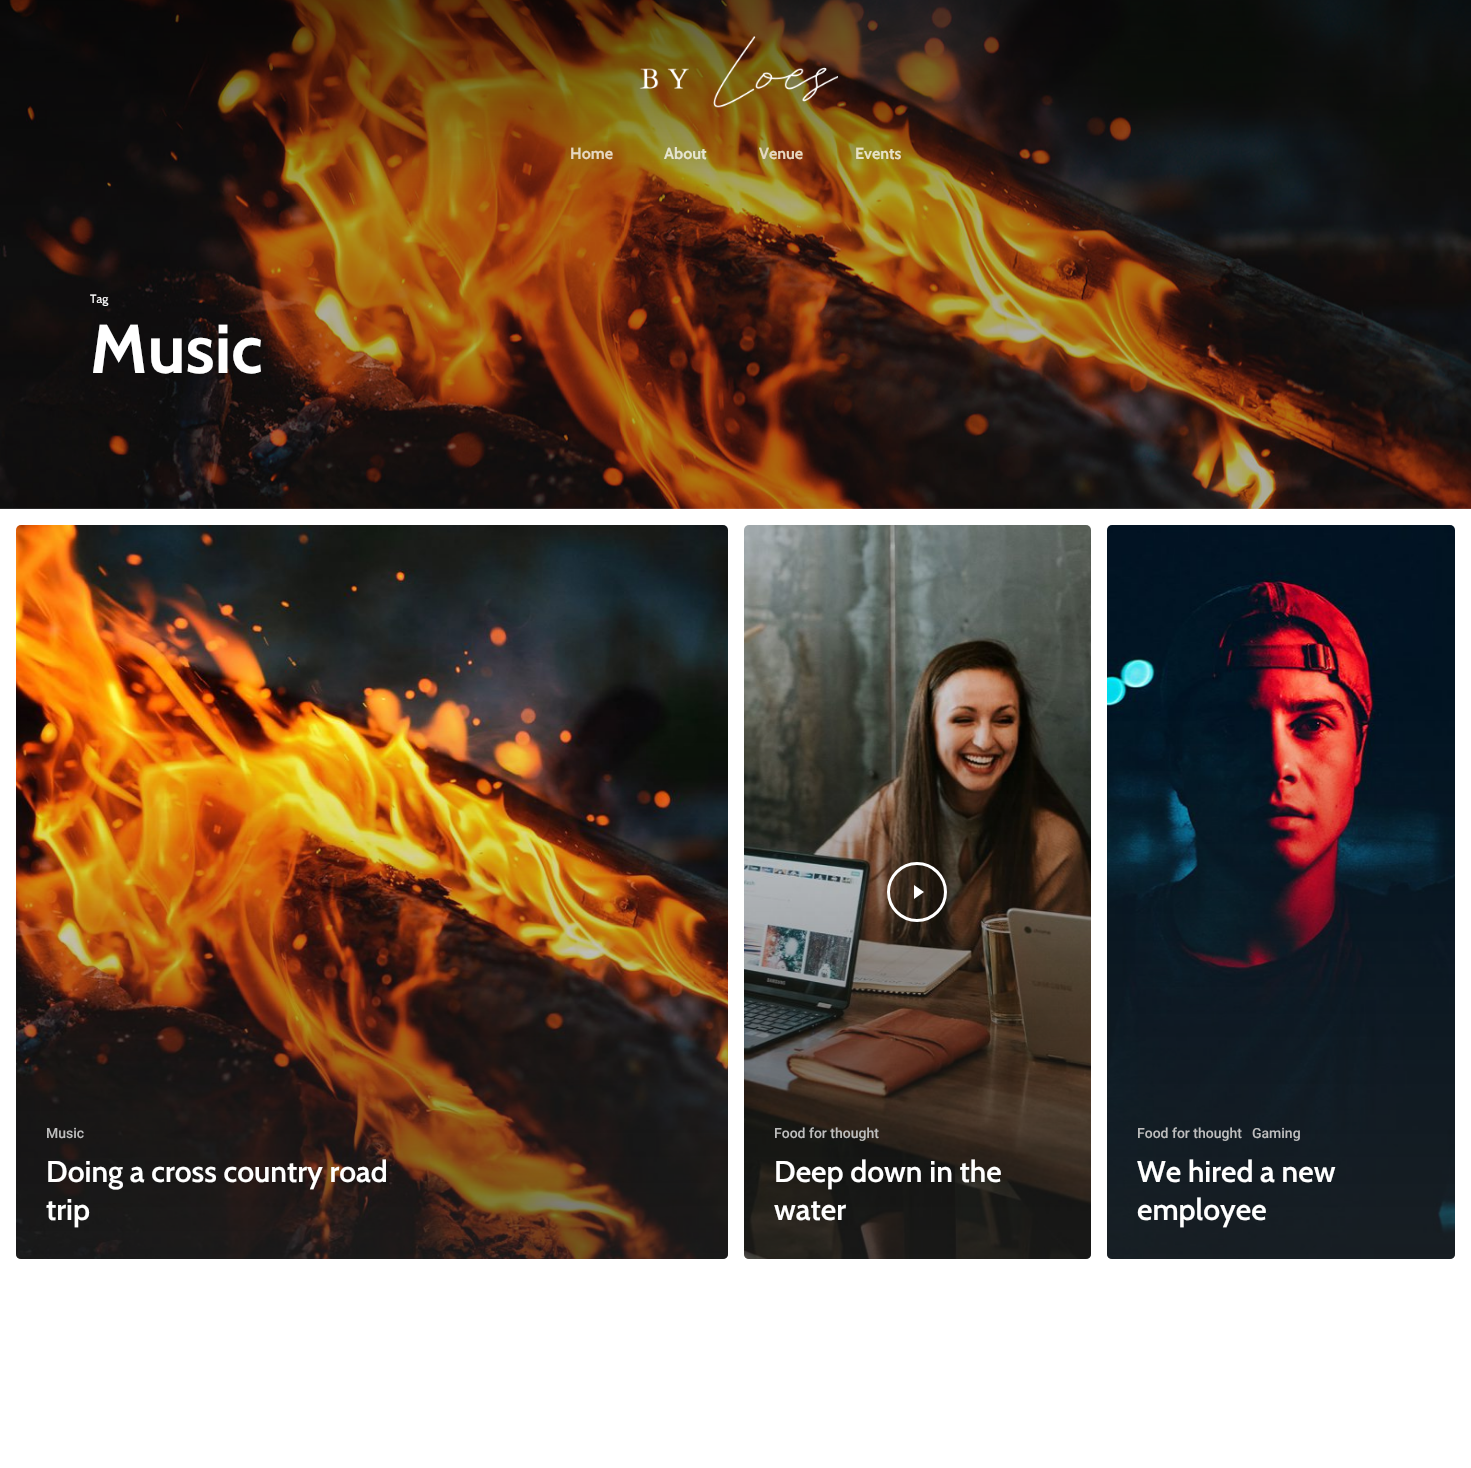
void draw(SkCanvas* canvas) {
	SkPaint paint;
	paint.setAntiAlias(true);
	auto svgPath = [&](const char* data, bool evenOdd = false) {
		SkPath result = *SkParsePath::FromSVGString(data);
		if (evenOdd) result.setFillType(SkPathFillType::kEvenOdd);
		return result;
	};
	canvas->clear(0xffffffff);
	canvas->drawImageRect(SkImages::DeferredFromEncodedData(SkData::MakeFromFileName("img2.png")), SkRect::MakeXYWH(0, 0, 1471, 509), SkSamplingOptions());
	canvas->drawImageRect(SkImages::DeferredFromEncodedData(SkData::MakeFromFileName("img1.png")), SkRect::MakeXYWH(639, 36, 199, 72), SkSamplingOptions());
	SkFont f1(fontMgr->matchFamilyStyle("Cabin", SkFontStyle::Bold()), 16);
	f1.setSubpixel(true);
	paint.setColor(0xffe6d8c2);
	canvas->drawString("Home", 570, 159, f1, paint);
	paint.setColor(0xffe6e5d0);
	canvas->drawString("About", 664, 159, f1, paint);
	paint.setColor(0xffe6d8c2);
	canvas->drawString("Venue", 759, 159, f1, paint);
	paint.setColor(0xffe6e1c6);
	canvas->drawString("Events", 855, 159, f1, paint);
	SkFont f2(fontMgr->matchFamilyStyle("Cabin", SkFontStyle::Normal()), 12);
	f2.setSubpixel(true);
	paint.setColor(0xffffffff);
	canvas->drawString("Tag", 90, 303, f2, paint);
	SkFont f3(fontMgr->matchFamilyStyle("Cabin", SkFontStyle::Bold()), 69);
	f3.setSubpixel(true);
	canvas->drawString("Music", 90, 373, f3, paint);
	canvas->drawImageRect(SkImages::DeferredFromEncodedData(SkData::MakeFromFileName("img3.png")), SkRect::MakeXYWH(16, 525, 712, 734), SkSamplingOptions());
	{
		const SkColor colors[] = {0x00232323, 0xa6232323};
		const float stops[] = {0, 1};
		const SkPoint ends[] = {{373, 709}, {374, 1262}};
		paint.setShader(SkGradientShader::MakeLinear(ends, colors, stops, 2, SkTileMode::kClamp));
		paint.setAlpha(255);
	}
	canvas->drawPath(svgPath("M16 709H728V1254C728 1257 726 1259 723 1259H21C18 1259 16 1257 16 1254Z"), paint);
	SkFont f4(fontMgr->matchFamilyStyle("Roboto", SkFontStyle(500, SkFontStyle::kNormal_Width, SkFontStyle::kUpright_Slant)), 14);
	f4.setSubpixel(true);
	paint.setShader(nullptr);
	paint.setColor(0xffbebebe);
	canvas->drawString("Music", 46, 1138, f4, paint);
	SkFont f5(fontMgr->matchFamilyStyle("Cabin", SkFontStyle(600, SkFontStyle::kNormal_Width, SkFontStyle::kUpright_Slant)), 30);
	f5.setSubpixel(true);
	paint.setColor(0xffffffff);
	canvas->drawString("Doing a cross country road", 46, 1182, f5, paint);
	canvas->drawString("trip", 46, 1220, f5, paint);
	canvas->drawImageRect(SkImages::DeferredFromEncodedData(SkData::MakeFromFileName("img4.png")), SkRect::MakeXYWH(744, 525, 347, 734), SkSamplingOptions());
	{
		const SkColor colors[] = {0x00232323, 0xa6232323};
		const float stops[] = {0, 1};
		const SkPoint ends[] = {{919, 709}, {919, 1262}};
		paint.setShader(SkGradientShader::MakeLinear(ends, colors, stops, 2, SkTileMode::kClamp));
		paint.setAlpha(255);
	}
	canvas->drawPath(svgPath("M744 709H1091V1254C1091 1257 1089 1259 1086 1259H749C746 1259 744 1257 744 1254Z"), paint);
	paint.setShader(nullptr);
	paint.setColor(0xffffffff);
	canvas->drawPath(svgPath("M914 885V899L924 892Z"), paint);
	paint.setStroke(true);
	paint.setStrokeWidth(3);
	canvas->drawCircle(917, 892, 28.5, paint);
	paint.setStroke(false);
	paint.setColor(0xffbebebe);
	canvas->drawString("Food for thought", 774, 1138, f4, paint);
	paint.setColor(0xffffffff);
	canvas->drawString("Deep down in the", 774, 1182, f5, paint);
	canvas->drawString("water", 774, 1220, f5, paint);
	canvas->drawImageRect(SkImages::DeferredFromEncodedData(SkData::MakeFromFileName("img5.png")), SkRect::MakeXYWH(1107, 525, 348, 734), SkSamplingOptions());
	{
		const SkColor colors[] = {0x00232323, 0xa6232323};
		const float stops[] = {0, 1};
		const SkPoint ends[] = {{1282, 709}, {1282, 1262}};
		paint.setShader(SkGradientShader::MakeLinear(ends, colors, stops, 2, SkTileMode::kClamp));
		paint.setAlpha(255);
	}
	canvas->drawPath(svgPath("M1107 709H1455V1254C1455 1257 1453 1259 1450 1259H1112C1109 1259 1107 1257 1107 1254Z"), paint);
	paint.setShader(nullptr);
	paint.setColor(0xffbebebe);
	canvas->drawString("Food for thought", 1137, 1138, f4, paint);
	canvas->drawString("Gaming", 1252, 1138, f4, paint);
	paint.setColor(0xffffffff);
	canvas->drawString("We hired a new", 1137, 1182, f5, paint);
	canvas->drawString("employee", 1137, 1220, f5, paint);
}
